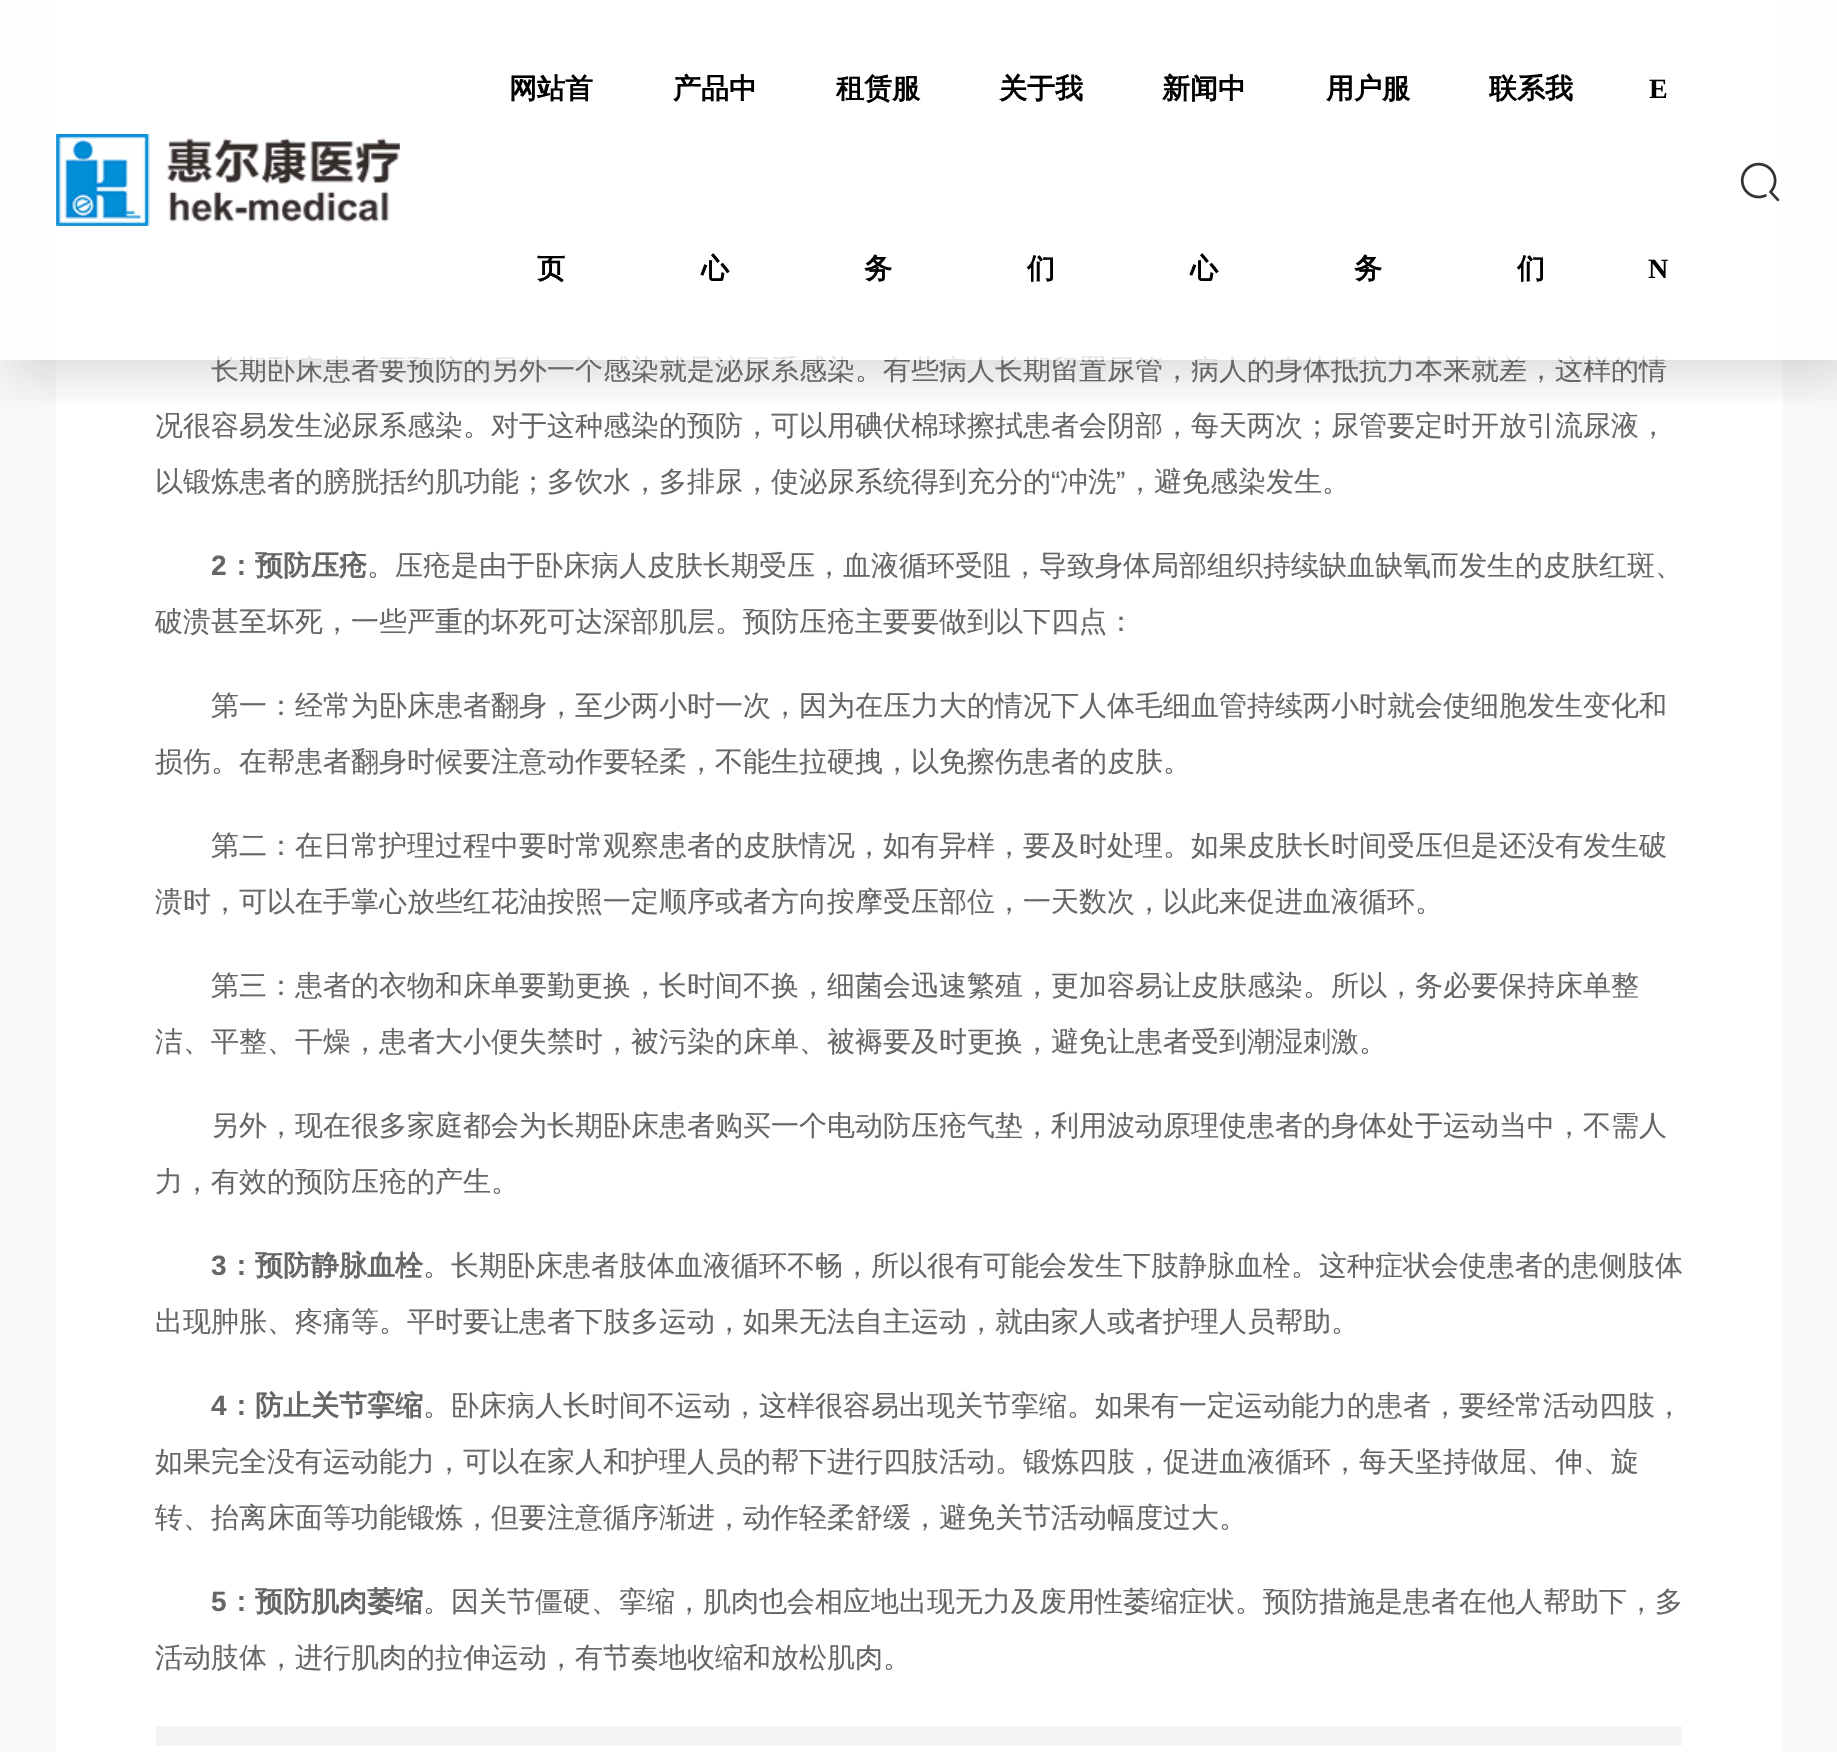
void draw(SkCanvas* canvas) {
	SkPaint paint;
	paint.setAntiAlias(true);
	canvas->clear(0xfff8f8f8);
	paint.setColor(0xffffffff);
	canvas->drawRect(SkRect::MakeXYWH(56, 0, 1726, 1752), paint);
	canvas->save();
	canvas->clipRect(SkRect::MakeXYWH(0, 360, 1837, 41));
	paint.setColor(0x29000000);
	paint.setMaskFilter(SkMaskFilter::MakeBlur(kNormal_SkBlurStyle, 25));
	canvas->drawRect(SkRect::MakeXYWH(12, 12, 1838, 360), paint);
	paint.setMaskFilter(nullptr);
	canvas->restore();
	SkFont f1(fontMgr->matchFamilyStyle("WenQuanYi Zen Hei", SkFontStyle(500, SkFontStyle::kNormal_Width, SkFontStyle::kUpright_Slant)), 28);
	f1.setSubpixel(true);
	paint.setColor(0xff666666);
	canvas->drawString("长期卧床患者要预防的另外一个感染就是泌尿系感染。有些病人长期留置尿管，病人的身体抵抗力本来就差，这样的情", 211, 379, f1, paint);
	paint.setColor(0xccffffff);
	canvas->drawRect(SkRect::MakeXYWH(0, 0, 1837, 360), paint);
	canvas->drawImageRect(SkImages::DeferredFromEncodedData(SkData::MakeFromFileName("img1.png")), SkRect::MakeXYWH(56, 134, 344, 92), SkSamplingOptions());
	SkFont f2(fontMgr->matchFamilyStyle("WenQuanYi Zen Hei", SkFontStyle::Bold()), 28);
	f2.setSubpixel(true);
	paint.setColor(0xff000000);
	canvas->drawString("网站首", 509, 98, f2, paint);
	canvas->drawString("页", 537, 278, f2, paint);
	canvas->drawString("产品中", 673, 98, f2, paint);
	canvas->drawString("心", 701, 278, f2, paint);
	canvas->drawString("租赁服", 836, 98, f2, paint);
	canvas->drawString("务", 864, 278, f2, paint);
	canvas->drawString("关于我", 999, 98, f2, paint);
	canvas->drawString("们", 1027, 278, f2, paint);
	canvas->drawString("新闻中", 1162, 98, f2, paint);
	canvas->drawString("心", 1190, 278, f2, paint);
	canvas->drawString("用户服", 1326, 98, f2, paint);
	canvas->drawString("务", 1354, 278, f2, paint);
	canvas->drawString("联系我", 1489, 98, f2, paint);
	canvas->drawString("们", 1517, 278, f2, paint);
	SkFont f3(fontMgr->matchFamilyStyle("Liberation Serif", SkFontStyle::Bold()), 28);
	f3.setSubpixel(true);
	canvas->drawString("E", 1649, 98, f3, paint);
	canvas->drawString("N", 1648, 278, f3, paint);
	canvas->drawImageRect(SkImages::DeferredFromEncodedData(SkData::MakeFromFileName("img2.png")), SkRect::MakeXYWH(1740, 162, 40, 40), SkSamplingOptions());
	paint.setColor(0xff666666);
	canvas->drawString("况很容易发生泌尿系感染。对于这种感染的预防，可以用碘伏棉球擦拭患者会阴部，每天两次；尿管要定时开放引流尿液，", 155, 435, f1, paint);
	canvas->drawString("以锻炼患者的膀胱括约肌功能；多饮水，多排尿，使泌尿系统得到充分的", 155, 491, f1, paint);
	SkFont f4(fontMgr->matchFamilyStyle("Liberation Sans", SkFontStyle::Normal()), 28);
	f4.setSubpixel(true);
	canvas->drawString("“", 1051, 491, f4, paint);
	canvas->drawString("冲洗", 1060, 491, f1, paint);
	canvas->drawString("”", 1116, 491, f4, paint);
	canvas->drawString("，避免感染发生。", 1126, 491, f1, paint);
	SkFont f5(fontMgr->matchFamilyStyle("Liberation Sans", SkFontStyle::Bold()), 28);
	f5.setSubpixel(true);
	canvas->drawString("2", 211, 575, f5, paint);
	canvas->drawString("：预防压疮", 227, 575, f2, paint);
	canvas->drawString("。压疮是由于卧床病人皮肤长期受压，血液循环受阻，导致身体局部组织持续缺血缺氧而发生的皮肤红斑、", 367, 575, f1, paint);
	canvas->drawString("破溃甚至坏死，一些严重的坏死可达深部肌层。预防压疮主要要做到以下四点：", 155, 631, f1, paint);
	canvas->drawString("第一：经常为卧床患者翻身，至少两小时一次，因为在压力大的情况下人体毛细血管持续两小时就会使细胞发生变化和", 211, 715, f1, paint);
	canvas->drawString("损伤。在帮患者翻身时候要注意动作要轻柔，不能生拉硬拽，以免擦伤患者的皮肤。", 155, 771, f1, paint);
	canvas->drawString("第二：在日常护理过程中要时常观察患者的皮肤情况，如有异样，要及时处理。如果皮肤长时间受压但是还没有发生破", 211, 855, f1, paint);
	canvas->drawString("溃时，可以在手掌心放些红花油按照一定顺序或者方向按摩受压部位，一天数次，以此来促进血液循环。", 155, 911, f1, paint);
	canvas->drawString("第三：患者的衣物和床单要勤更换，长时间不换，细菌会迅速繁殖，更加容易让皮肤感染。所以，务必要保持床单整", 211, 995, f1, paint);
	canvas->drawString("洁、平整、干燥，患者大小便失禁时，被污染的床单、被褥要及时更换，避免让患者受到潮湿刺激。", 155, 1051, f1, paint);
	canvas->drawString("另外，现在很多家庭都会为长期卧床患者购买一个电动防压疮气垫，利用波动原理使患者的身体处于运动当中，不需人", 211, 1135, f1, paint);
	canvas->drawString("力，有效的预防压疮的产生。", 155, 1191, f1, paint);
	canvas->drawString("3", 211, 1275, f5, paint);
	canvas->drawString("：预防静脉血栓", 227, 1275, f2, paint);
	canvas->drawString("。长期卧床患者肢体血液循环不畅，所以很有可能会发生下肢静脉血栓。这种症状会使患者的患侧肢体", 423, 1275, f1, paint);
	canvas->drawString("出现肿胀、疼痛等。平时要让患者下肢多运动，如果无法自主运动，就由家人或者护理人员帮助。", 155, 1331, f1, paint);
	canvas->drawString("4", 211, 1415, f5, paint);
	canvas->drawString("：防止关节挛缩", 227, 1415, f2, paint);
	canvas->drawString("。卧床病人长时间不运动，这样很容易出现关节挛缩。如果有一定运动能力的患者，要经常活动四肢，", 423, 1415, f1, paint);
	canvas->drawString("如果完全没有运动能力，可以在家人和护理人员的帮下进行四肢活动。锻炼四肢，促进血液循环，每天坚持做屈、伸、旋", 155, 1471, f1, paint);
	canvas->drawString("转、抬离床面等功能锻炼，但要注意循序渐进，动作轻柔舒缓，避免关节活动幅度过大。", 155, 1527, f1, paint);
	canvas->drawString("5", 211, 1611, f5, paint);
	canvas->drawString("：预防肌肉萎缩", 227, 1611, f2, paint);
	canvas->drawString("。因关节僵硬、挛缩，肌肉也会相应地出现无力及废用性萎缩症状。预防措施是患者在他人帮助下，多", 423, 1611, f1, paint);
	canvas->drawString("活动肢体，进行肌肉的拉伸运动，有节奏地收缩和放松肌肉。", 155, 1667, f1, paint);
	paint.setColor(0xfff5f5f5);
	canvas->drawRect(SkRect::MakeXYWH(156, 1726, 1526, 20), paint);
}
